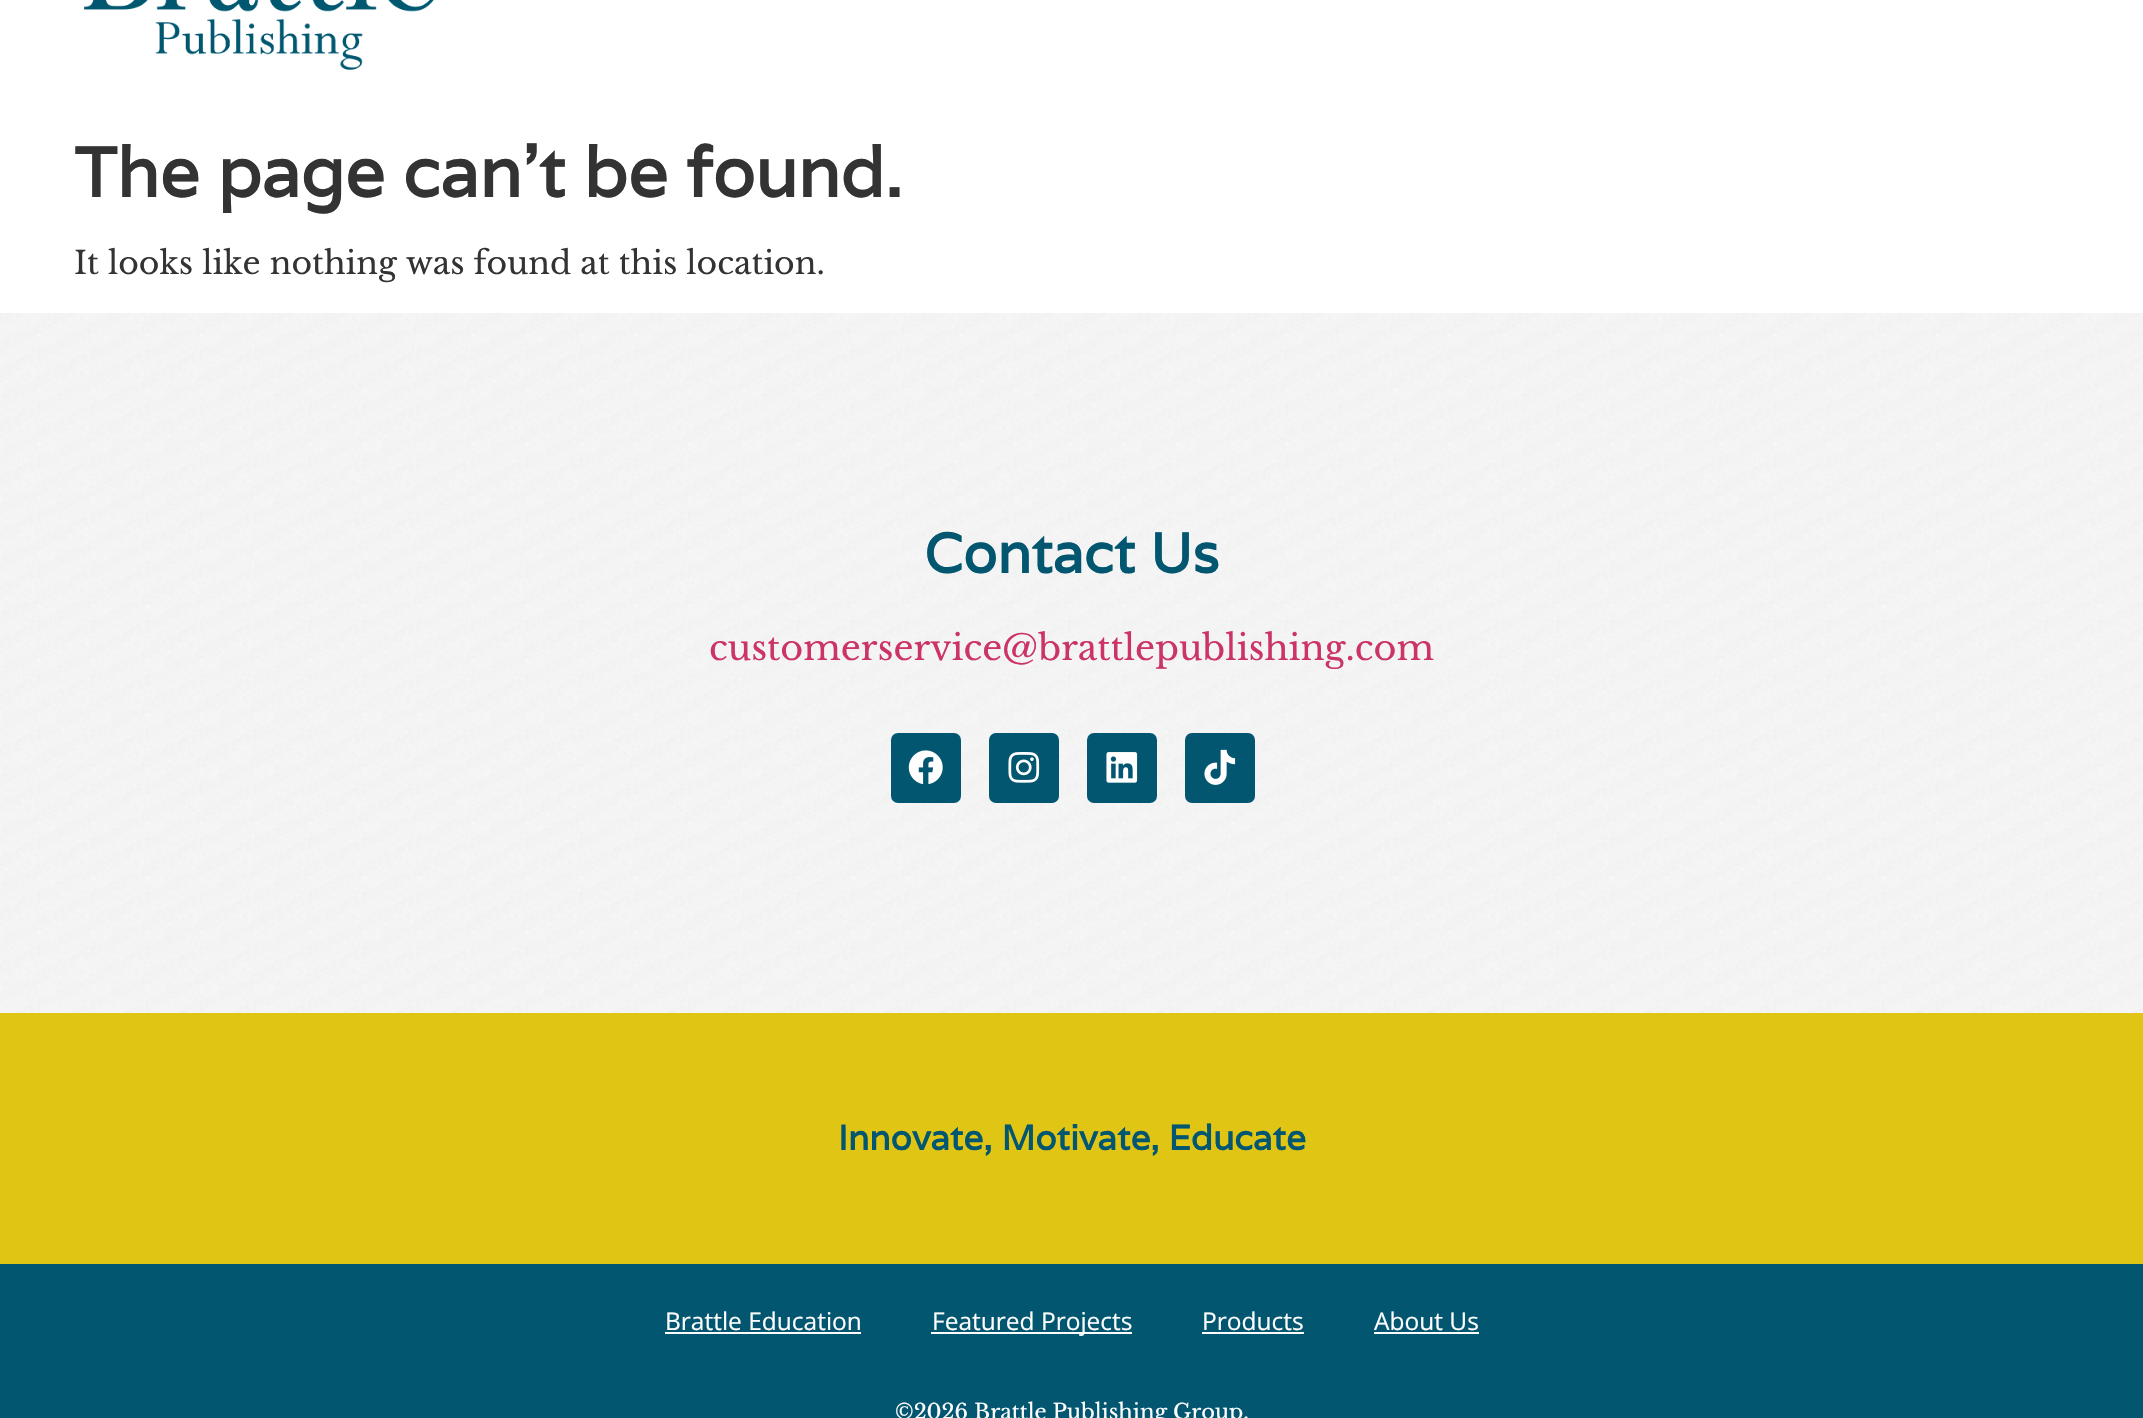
void draw(SkCanvas* canvas) {
	SkPaint paint;
	paint.setAntiAlias(true);
	canvas->clear(0xffffffff);
	canvas->drawImageRect(SkImages::DeferredFromEncodedData(SkData::MakeFromFileName("img1.png")), SkRect::MakeXYWH(84, 0, 350, 70), SkSamplingOptions());
	SkFont f1(fontMgr->matchFamilyStyle("Varela", SkFontStyle::Bold()), 70);
	f1.setSubpixel(true);
	paint.setColor(0xff333333);
	canvas->drawString("The page can’t be found.", 74, 197, f1, paint);
	SkFont f2(fontMgr->matchFamilyStyle("Libre Baskerville", SkFontStyle::Normal()), 31.5);
	f2.setSubpixel(true);
	canvas->drawString("It looks like nothing was found at this location.", 74, 274, f2, paint);
	canvas->drawImageRect(SkImages::DeferredFromEncodedData(SkData::MakeFromFileName("img2.png")), SkRect::MakeXYWH(0, 313, 2143, 700), SkSamplingOptions());
	SkFont f3(fontMgr->matchFamilyStyle("Varela", SkFontStyle::Bold()), 56);
	f3.setSubpixel(true);
	paint.setColor(0xff025670);
	canvas->drawString("Contact Us", 924, 573, f3, paint);
	SkFont f4(fontMgr->matchFamilyStyle("Libre Baskerville", SkFontStyle::Normal()), 35);
	f4.setSubpixel(true);
	paint.setColor(0xffcc3366);
	canvas->drawString("customerservice@brattlepublishing.com", 709, 660, f4, paint);
	paint.setColor(0xff025670);
	canvas->drawRoundRect(SkRect::MakeXYWH(891, 733, 70, 70), 7, 7, paint);
	canvas->drawImageRect(SkImages::DeferredFromEncodedData(SkData::MakeFromFileName("img3.png")), SkRect::MakeXYWH(908, 750, 35, 35), SkSamplingOptions());
	canvas->drawRoundRect(SkRect::MakeXYWH(989, 733, 70, 70), 7, 7, paint);
	canvas->drawImageRect(SkImages::DeferredFromEncodedData(SkData::MakeFromFileName("img4.png")), SkRect::MakeXYWH(1008, 752, 32, 31), SkSamplingOptions());
	canvas->drawRoundRect(SkRect::MakeXYWH(1087, 733, 70, 70), 7, 7, paint);
	canvas->drawImageRect(SkImages::DeferredFromEncodedData(SkData::MakeFromFileName("img5.png")), SkRect::MakeXYWH(1106, 752, 32, 31), SkSamplingOptions());
	canvas->drawRoundRect(SkRect::MakeXYWH(1185, 733, 70, 70), 7, 7, paint);
	canvas->drawImageRect(SkImages::DeferredFromEncodedData(SkData::MakeFromFileName("img6.png")), SkRect::MakeXYWH(1204, 749, 32, 36), SkSamplingOptions());
	paint.setColor(0xffe1c514);
	canvas->drawRect(SkRect::MakeXYWH(0, 1013, 2143, 251), paint);
	SkFont f5(fontMgr->matchFamilyStyle("Varela", SkFontStyle::Bold()), 35);
	f5.setSubpixel(true);
	paint.setColor(0xff025670);
	canvas->drawString("Innovate, Motivate, Educate", 838, 1150, f5, paint);
	canvas->drawRect(SkRect::MakeXYWH(0, 1264, 2143, 154), paint);
	SkFont f6(fontMgr->matchFamilyStyle("Open Sans", SkFontStyle::Normal()), 24.5);
	f6.setSubpixel(true);
	paint.setColor(0xffffffff);
	canvas->drawString("Brattle Education", 665, 1330, f6, paint);
	canvas->drawRect(SkRect::MakeXYWH(665, 1332, 196, 2), paint);
	canvas->drawRect(SkRect::MakeXYWH(931, 1332, 201, 2), paint);
	canvas->drawString("Featured Projects", 932, 1330, f6, paint);
	canvas->drawString("Products", 1202, 1330, f6, paint);
	canvas->drawRect(SkRect::MakeXYWH(1202, 1332, 102, 2), paint);
	canvas->drawString("About Us", 1374, 1330, f6, paint);
	canvas->drawRect(SkRect::MakeXYWH(1374, 1332, 105, 2), paint);
	SkFont f7(fontMgr->matchFamilyStyle("Libre Baskerville", SkFontStyle::Normal()), 21);
	f7.setSubpixel(true);
	canvas->drawString("©2026 Brattle Publishing Group.", 895, 1419, f7, paint);
}
